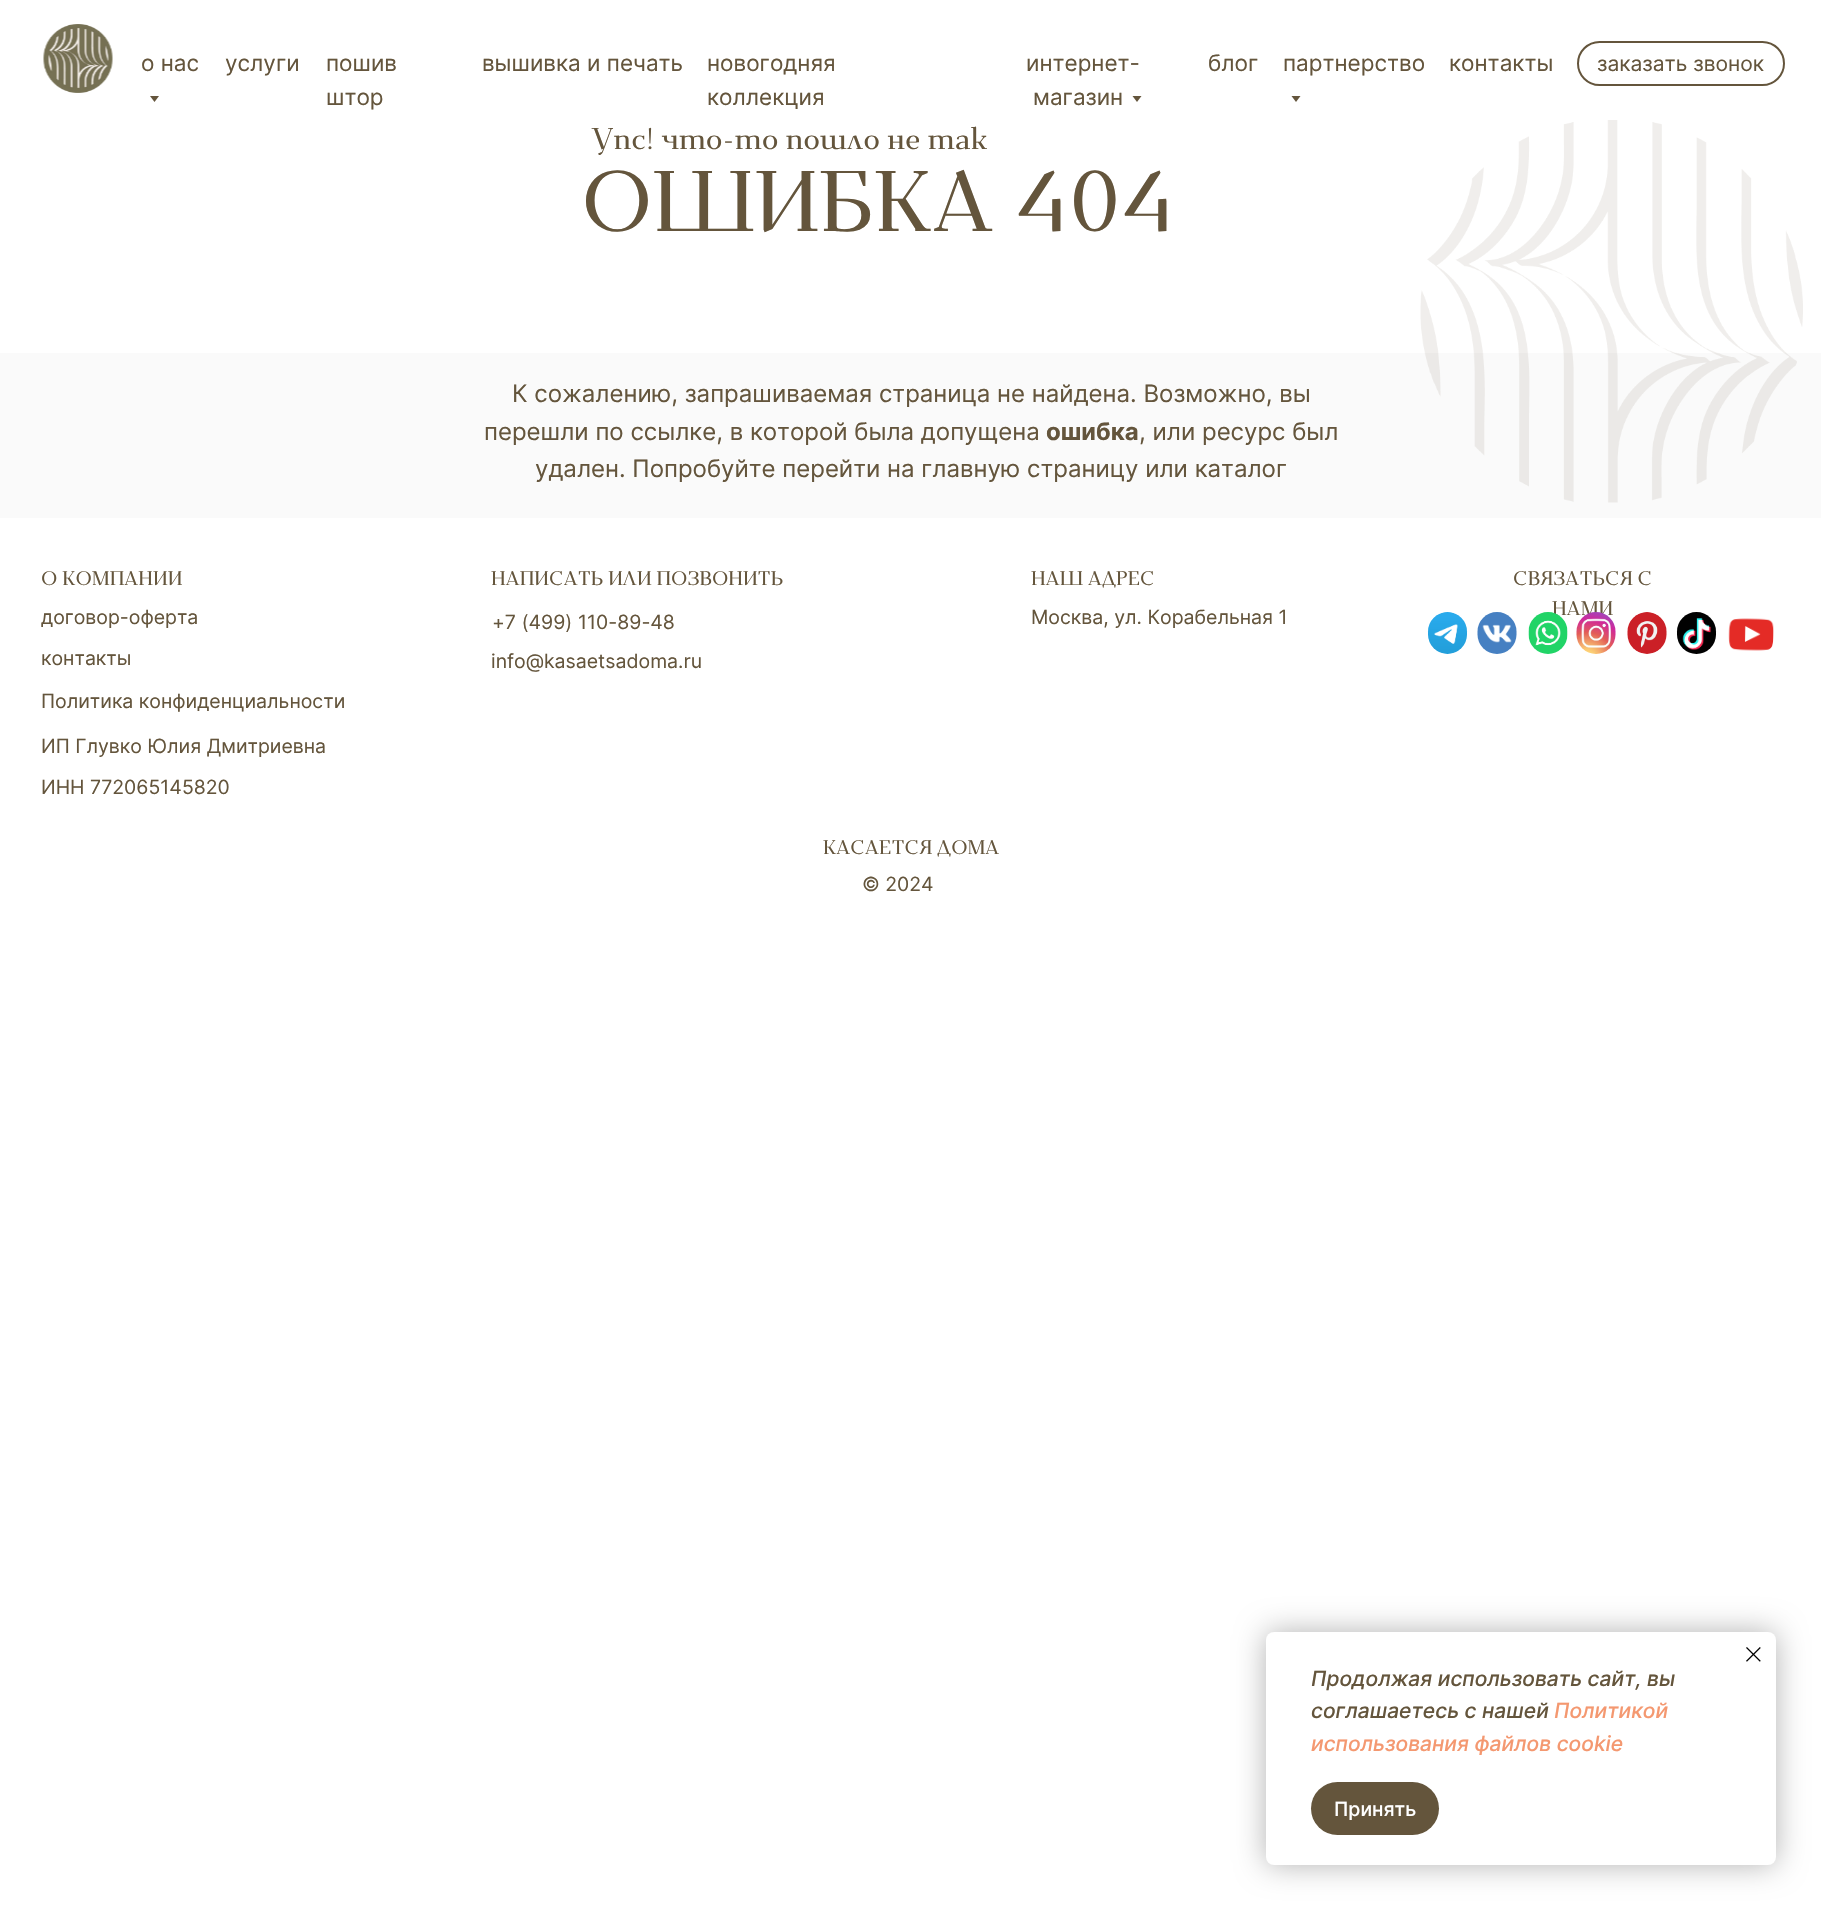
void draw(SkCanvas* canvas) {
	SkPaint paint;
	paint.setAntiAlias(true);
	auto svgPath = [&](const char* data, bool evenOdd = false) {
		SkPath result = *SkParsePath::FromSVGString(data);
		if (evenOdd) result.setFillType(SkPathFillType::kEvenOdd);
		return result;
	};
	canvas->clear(0xffffffff);
	canvas->drawImageRect(SkImages::DeferredFromEncodedData(SkData::MakeFromFileName("img1.png")), SkRect::MakeXYWH(43, 24, 70, 69), SkSamplingOptions());
	SkFont f1(fontMgr->matchFamilyStyle("Inter", SkFontStyle::Normal()), 22.5);
	f1.setSubpixel(true);
	paint.setColor(0xff64553c);
	canvas->drawString("о нас", 141, 71, f1, paint);
	canvas->drawPath(svgPath("M150 96H159L154.5 102Z"), paint);
	canvas->drawString("услуги", 225, 71, f1, paint);
	canvas->drawString("пошив", 326, 71, f1, paint);
	canvas->drawString("штор", 326, 105, f1, paint);
	canvas->drawString("вышивка и печать", 482, 71, f1, paint);
	canvas->drawString("новогодняя", 707, 71, f1, paint);
	canvas->drawString("коллекция", 707, 105, f1, paint);
	canvas->drawString("интернет-", 1026, 71, f1, paint);
	canvas->drawString("магазин", 1033, 105, f1, paint);
	canvas->drawPath(svgPath("M1132.5 96H1141.5L1137 102Z"), paint);
	canvas->drawString("блог", 1208, 71, f1, paint);
	canvas->drawString("партнерство", 1283, 71, f1, paint);
	canvas->drawPath(svgPath("M1291.5 96H1300.5L1296 102Z"), paint);
	canvas->drawString("контакты", 1449, 71, f1, paint);
	paint.setStroke(true);
	paint.setStrokeWidth(2);
	canvas->drawRoundRect(SkRect::MakeXYWH(1578, 42, 206, 43), 21.5, 21.5, paint);
	SkFont f2(fontMgr->matchFamilyStyle("Inter", SkFontStyle::Normal()), 21);
	f2.setSubpixel(true);
	paint.setStroke(false);
	canvas->drawString("заказать звонок", 1597, 71, f2, paint);
	SkFont f3(fontMgr->matchFamilyStyle("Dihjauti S", SkFontStyle::Bold()), 30);
	f3.setSubpixel(true);
	canvas->drawString("Упс! что-то пошло не так", 591, 149, f3, paint);
	paint.setColor(0xfffafafa);
	canvas->drawRect(SkRect::MakeXYWH(0, 353, 1821, 165), paint);
	canvas->drawImageRect(SkImages::DeferredFromEncodedData(SkData::MakeFromFileName("img2.png")), SkRect::MakeXYWH(1420, 120, 383, 383), SkSamplingOptions());
	SkFont f4(fontMgr->matchFamilyStyle("Dihjauti S", SkFontStyle::Bold()), 85.5);
	f4.setSubpixel(true);
	paint.setColor(0xff64553c);
	canvas->drawString("ОШИБКА 404", 581, 231, f4, paint);
	SkFont f5(fontMgr->matchFamilyStyle("Inter", SkFontStyle::Normal()), 24);
	f5.setSubpixel(true);
	canvas->drawString("К сожалению, запрашиваемая страница не найдена. Возможно, вы", 512, 402, f5, paint);
	canvas->drawString("перешли по ссылке, в которой была допущена", 484, 440, f5, paint);
	SkFont f6(fontMgr->matchFamilyStyle("Inter", SkFontStyle::Bold()), 24);
	f6.setSubpixel(true);
	canvas->drawString("ошибка", 1046, 440, f6, paint);
	canvas->drawString(", или ресурс был", 1139, 440, f5, paint);
	canvas->drawString("удален. Попробуйте перейти на главную страницу или каталог", 535, 477, f5, paint);
	SkFont f7(fontMgr->matchFamilyStyle("Dihjauti S", SkFontStyle::Bold()), 19.5);
	f7.setSubpixel(true);
	canvas->drawString("О КОМПАНИИ", 41, 585, f7, paint);
	canvas->drawString("НАПИСАТЬ ИЛИ ПОЗВОНИТЬ", 491, 585, f7, paint);
	canvas->drawString("НАШ АДРЕС", 1031, 585, f7, paint);
	canvas->drawString("СВЯЗАТЬСЯ С", 1513, 585, f7, paint);
	canvas->drawString("НАМИ", 1552, 615, f7, paint);
	SkFont f8(fontMgr->matchFamilyStyle("Inter", SkFontStyle::Normal()), 19.5);
	f8.setSubpixel(true);
	canvas->drawString("договор-оферта", 41, 624, f8, paint);
	canvas->drawString("+7 (499) 110-89-48", 492, 629, f8, paint);
	canvas->drawString("Москва, ул. Корабельная 1", 1031, 624, f8, paint);
	canvas->drawImageRect(SkImages::DeferredFromEncodedData(SkData::MakeFromFileName("img3.png")), SkRect::MakeXYWH(1427, 612, 41, 42), SkSamplingOptions());
	canvas->drawImageRect(SkImages::DeferredFromEncodedData(SkData::MakeFromFileName("img4.png")), SkRect::MakeXYWH(1477, 612, 40, 42), SkSamplingOptions());
	canvas->drawImageRect(SkImages::DeferredFromEncodedData(SkData::MakeFromFileName("img5.png")), SkRect::MakeXYWH(1528, 612, 40, 42), SkSamplingOptions());
	canvas->drawImageRect(SkImages::DeferredFromEncodedData(SkData::MakeFromFileName("img6.png")), SkRect::MakeXYWH(1576, 612, 40, 42), SkSamplingOptions());
	canvas->drawImageRect(SkImages::DeferredFromEncodedData(SkData::MakeFromFileName("img7.png")), SkRect::MakeXYWH(1627, 612, 40, 42), SkSamplingOptions());
	canvas->drawImageRect(SkImages::DeferredFromEncodedData(SkData::MakeFromFileName("img8.png")), SkRect::MakeXYWH(1676, 612, 41, 42), SkSamplingOptions());
	canvas->drawImageRect(SkImages::DeferredFromEncodedData(SkData::MakeFromFileName("img9.png")), SkRect::MakeXYWH(1728, 618, 46, 33), SkSamplingOptions());
	canvas->drawString("контакты", 41, 665, f8, paint);
	canvas->drawString("info@kasaetsadoma.ru", 491, 668, f8, paint);
	canvas->drawString("Политика конфиденциальности", 41, 708, f8, paint);
	canvas->drawString("ИП Глувко Юлия Дмитриевна", 41, 753, f8, paint);
	canvas->drawString("ИНН 772065145820", 41, 794, f8, paint);
	canvas->drawString("КАСАЕТСЯ ДОМА", 823, 854, f7, paint);
	canvas->drawString("© 2024", 862, 891, f8, paint);
	paint.setColor(0x4d000000);
	paint.setMaskFilter(SkMaskFilter::MakeBlur(kNormal_SkBlurStyle, 15));
	canvas->drawRoundRect(SkRect::MakeXYWH(1266, 1632, 510, 233), 8, 8, paint);
	paint.setMaskFilter(nullptr);
	paint.setColor(0xffffffff);
	canvas->drawRoundRect(SkRect::MakeXYWH(1266, 1632, 510, 233), 8, 8, paint);
	canvas->drawImageRect(SkImages::DeferredFromEncodedData(SkData::MakeFromFileName("img10.png")), SkRect::MakeXYWH(1746, 1647, 15, 15), SkSamplingOptions());
	SkFont f9(fontMgr->matchFamilyStyle("Inter", SkFontStyle(500, SkFontStyle::kNormal_Width, SkFontStyle::kItalic_Slant)), 21);
	f9.setSubpixel(true);
	paint.setColor(0xff64553c);
	canvas->drawString("Продолжая использовать сайт, вы", 1311, 1686, f9, paint);
	canvas->drawString("соглашаетесь с нашей", 1311, 1718, f9, paint);
	paint.setColor(0xfff49870);
	canvas->drawString("Политикой", 1554, 1718, f9, paint);
	canvas->drawString("использования файлов cookie", 1311, 1751, f9, paint);
	paint.setColor(0xff64553c);
	canvas->drawRoundRect(SkRect::MakeXYWH(1311, 1782, 128, 53), 26.5, 26.5, paint);
	SkFont f10(fontMgr->matchFamilyStyle("Inter", SkFontStyle(500, SkFontStyle::kNormal_Width, SkFontStyle::kUpright_Slant)), 19.5);
	f10.setSubpixel(true);
	paint.setColor(0xffffffff);
	canvas->drawString("Принять", 1334, 1816, f10, paint);
}
